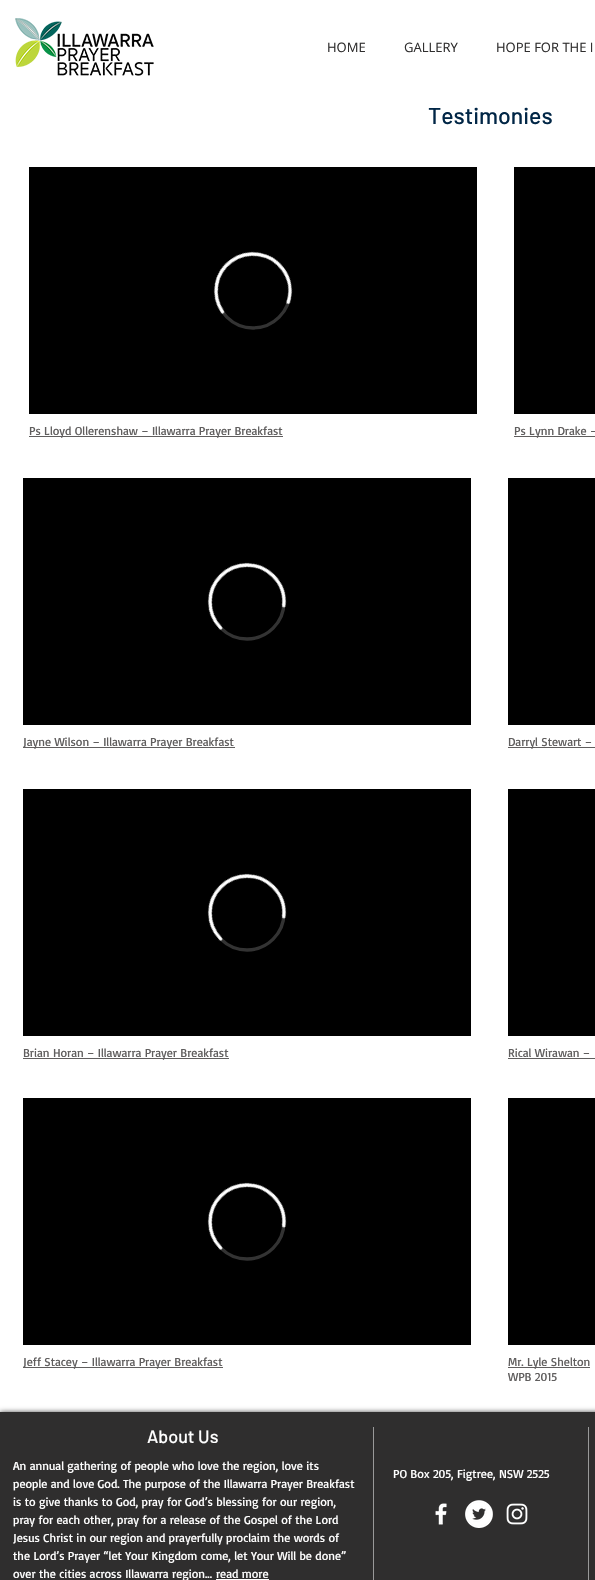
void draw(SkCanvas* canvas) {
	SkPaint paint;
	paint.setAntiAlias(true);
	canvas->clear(0xffffffff);
	canvas->drawImageRect(SkImages::DeferredFromEncodedData(SkData::MakeFromFileName("img1.png")), SkRect::MakeXYWH(15, 18, 139, 58), SkSamplingOptions());
	SkFont f1(fontMgr->matchFamilyStyle("Open Sans", SkFontStyle::Normal()), 13);
	f1.setSubpixel(true);
	paint.setColor(0xff2f2e2e);
	canvas->drawString("HOME", 327, 52, f1, paint);
	canvas->drawString("GALLERY", 404, 52, f1, paint);
	canvas->drawString("HOPE FOR THE I", 496, 52, f1, paint);
	SkFont f2(fontMgr->matchFamilyStyle("Barlow", SkFontStyle(500, SkFontStyle::kNormal_Width, SkFontStyle::kUpright_Slant)), 23);
	f2.setSubpixel(true);
	paint.setColor(0xff012646);
	canvas->drawString("Testimonies", 428, 124, f2, paint);
	canvas->drawImageRect(SkImages::DeferredFromEncodedData(SkData::MakeFromFileName("img2.png")), SkRect::MakeXYWH(29, 167, 448, 247), SkSamplingOptions());
	paint.setColor(0xff000000);
	canvas->drawRect(SkRect::MakeXYWH(514, 167, 81, 247), paint);
	paint.setColor(0xff605e5e);
	canvas->drawRect(SkRect::MakeXYWH(29, 436, 254, 1), paint);
	SkFont f3(fontMgr->matchFamilyStyle("Basic", SkFontStyle::Normal()), 12);
	f3.setSubpixel(true);
	canvas->drawString("Ps Lloyd Ollerenshaw – Illawarra Prayer Breakfast", 29, 435, f3, paint);
	canvas->drawRect(SkRect::MakeXYWH(514, 436, 81, 1), paint);
	canvas->drawString("Ps Lynn Drake –", 514, 435, f3, paint);
	canvas->drawImageRect(SkImages::DeferredFromEncodedData(SkData::MakeFromFileName("img3.png")), SkRect::MakeXYWH(23, 478, 448, 247), SkSamplingOptions());
	paint.setColor(0xff000000);
	canvas->drawRect(SkRect::MakeXYWH(508, 478, 87, 247), paint);
	paint.setColor(0xff605e5e);
	canvas->drawRect(SkRect::MakeXYWH(23, 747, 212, 1), paint);
	canvas->drawString("Jayne Wilson – Illawarra Prayer Breakfast", 23, 746, f3, paint);
	canvas->drawRect(SkRect::MakeXYWH(508, 747, 87, 1), paint);
	canvas->drawString("Darryl Stewart –", 508, 746, f3, paint);
	canvas->drawImageRect(SkImages::DeferredFromEncodedData(SkData::MakeFromFileName("img4.png")), SkRect::MakeXYWH(23, 789, 448, 247), SkSamplingOptions());
	paint.setColor(0xff000000);
	canvas->drawRect(SkRect::MakeXYWH(508, 789, 87, 247), paint);
	paint.setColor(0xff605e5e);
	canvas->drawRect(SkRect::MakeXYWH(23, 1058, 206, 1), paint);
	canvas->drawString("Brian Horan – Illawarra Prayer Breakfast", 23, 1057, f3, paint);
	canvas->drawString("Rical Wirawan –", 508, 1057, f3, paint);
	canvas->drawRect(SkRect::MakeXYWH(508, 1058, 87, 1), paint);
	canvas->drawImageRect(SkImages::DeferredFromEncodedData(SkData::MakeFromFileName("img5.png")), SkRect::MakeXYWH(23, 1098, 448, 247), SkSamplingOptions());
	paint.setColor(0xff000000);
	canvas->drawRect(SkRect::MakeXYWH(508, 1098, 87, 247), paint);
	paint.setColor(0xff605e5e);
	canvas->drawRect(SkRect::MakeXYWH(23, 1367, 200, 1), paint);
	canvas->drawString("Jeff Stacey – Illawarra Prayer Breakfast", 23, 1366, f3, paint);
	canvas->drawRect(SkRect::MakeXYWH(508, 1367, 82, 1), paint);
	canvas->drawString("Mr. Lyle Shelton", 508, 1366, f3, paint);
	canvas->drawString("WPB 2015", 508, 1381, f3, paint);
	paint.setColor(0xb3000000);
	paint.setMaskFilter(SkMaskFilter::MakeBlur(kNormal_SkBlurStyle, 2.5));
	canvas->drawRect(SkRect::MakeXYWH(0, 1412, 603, 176), paint);
	paint.setMaskFilter(nullptr);
	paint.setColor(0xff2f2e2e);
	canvas->drawRect(SkRect::MakeXYWH(0, 1412, 595, 168), paint);
	SkFont f4(fontMgr->matchFamilyStyle("Barlow", SkFontStyle(500, SkFontStyle::kNormal_Width, SkFontStyle::kUpright_Slant)), 18);
	f4.setSubpixel(true);
	paint.setColor(0xffffffff);
	canvas->drawString("About Us", 147, 1443, f4, paint);
	paint.setColor(0xff999999);
	canvas->drawRect(SkRect::MakeXYWH(373, 1427, 1, 153), paint);
	canvas->drawRect(SkRect::MakeXYWH(588, 1427, 1, 153), paint);
	paint.setColor(0xffffffff);
	canvas->drawString("An annual gathering of people who love the region, love its", 13, 1470, f3, paint);
	canvas->drawString("people and love God. The purpose of the Illawarra Prayer Breakfast", 13, 1488, f3, paint);
	canvas->drawString("is to give thanks to God, pray for God’s blessing for our region,", 13, 1506, f3, paint);
	canvas->drawString("pray for each other, pray for a release of the Gospel of the Lord", 13, 1524, f3, paint);
	canvas->drawString("Jesus Christ in our region and prayerfully proclaim the words of", 13, 1542, f3, paint);
	canvas->drawString("the Lord’s Prayer “let Your Kingdom come, let Your Will be done”", 13, 1560, f3, paint);
	canvas->drawString("over the cities across Illawarra region...", 13, 1578, f3, paint);
	canvas->drawString("read more", 216, 1578, f3, paint);
	canvas->drawRect(SkRect::MakeXYWH(216, 1579, 53, 1), paint);
	canvas->drawString("PO Box 205, Figtree, NSW 2525", 393, 1478, f3, paint);
	canvas->drawImageRect(SkImages::DeferredFromEncodedData(SkData::MakeFromFileName("img6.png")), SkRect::MakeXYWH(435, 1503, 12, 22), SkSamplingOptions());
	canvas->drawImageRect(SkImages::DeferredFromEncodedData(SkData::MakeFromFileName("img7.png")), SkRect::MakeXYWH(465, 1500, 28, 28), SkSamplingOptions());
	canvas->drawImageRect(SkImages::DeferredFromEncodedData(SkData::MakeFromFileName("img8.png")), SkRect::MakeXYWH(506, 1503, 22, 22), SkSamplingOptions());
}
